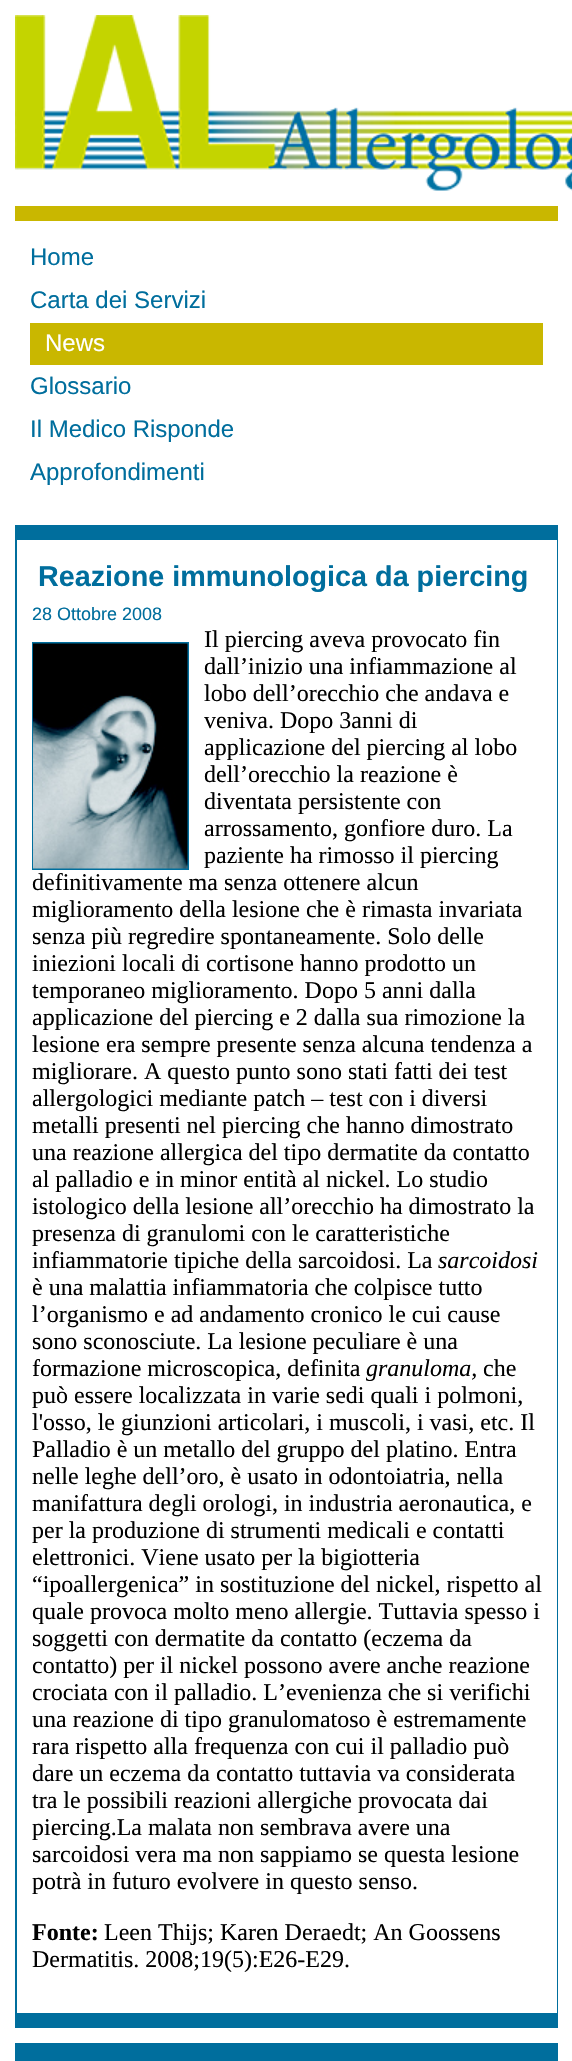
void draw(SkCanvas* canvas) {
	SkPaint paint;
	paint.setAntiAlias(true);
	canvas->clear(0xffffffff);
	canvas->drawImageRect(SkImages::DeferredFromEncodedData(SkData::MakeFromFileName("img1.png")), SkRect::MakeXYWH(15, 15, 557, 176), SkSamplingOptions());
	paint.setColor(0xffc9b700);
	canvas->drawRect(SkRect::MakeXYWH(15, 206, 543, 15), paint);
	SkFont f1(fontMgr->matchFamilyStyle("Liberation Sans", SkFontStyle::Normal()), 24);
	f1.setSubpixel(true);
	paint.setColor(0xff006e9d);
	canvas->drawString("Home", 30, 265, f1, paint);
	canvas->drawString("Carta dei Servizi", 30, 308, f1, paint);
	paint.setColor(0xffc9b700);
	canvas->drawRect(SkRect::MakeXYWH(30, 323, 513, 42), paint);
	paint.setColor(0xffffffff);
	canvas->drawString("News", 45, 351, f1, paint);
	paint.setColor(0xff006e9d);
	canvas->drawString("Glossario", 30, 394, f1, paint);
	canvas->drawString("Il Medico Risponde", 30, 437, f1, paint);
	canvas->drawString("Approfondimenti", 30, 480, f1, paint);
	canvas->drawRect(SkRect::MakeXYWH(17, 525, 540, 15), paint);
	canvas->drawRect(SkRect::MakeXYWH(557, 525, 1, 1488), paint);
	canvas->drawRect(SkRect::MakeXYWH(17, 2013, 541, 15), paint);
	canvas->drawRect(SkRect::MakeXYWH(15, 525, 2, 1503), paint);
	SkFont f2(fontMgr->matchFamilyStyle("Liberation Sans", SkFontStyle::Bold()), 28.75);
	f2.setSubpixel(true);
	canvas->drawString("Reazione immunologica da piercing", 38, 586, f2, paint);
	SkFont f3(fontMgr->matchFamilyStyle("Liberation Sans", SkFontStyle::Normal()), 18);
	f3.setSubpixel(true);
	canvas->drawString("28 Ottobre 2008", 32, 620, f3, paint);
	paint.setStroke(true);
	paint.setStrokeWidth(2);
	canvas->drawRect(SkRect::MakeXYWH(33, 643, 155, 226), paint);
	canvas->drawImageRect(SkImages::DeferredFromEncodedData(SkData::MakeFromFileName("img2.png")), SkRect::MakeXYWH(33, 643, 155, 226), SkSamplingOptions());
	SkFont f4(fontMgr->matchFamilyStyle("Liberation Serif", SkFontStyle::Normal()), 24);
	f4.setSubpixel(true);
	paint.setStroke(false);
	paint.setColor(0xff000000);
	canvas->drawString("Il piercing aveva provocato fin", 204, 647, f4, paint);
	canvas->drawString("dall’inizio una infiammazione al", 204, 674, f4, paint);
	canvas->drawString("lobo dell’orecchio che andava e", 204, 701, f4, paint);
	canvas->drawString("veniva. Dopo 3anni di", 204, 728, f4, paint);
	canvas->drawString("applicazione del piercing al lobo", 204, 755, f4, paint);
	canvas->drawString("dell’orecchio la reazione è", 204, 782, f4, paint);
	canvas->drawString("diventata persistente con", 204, 809, f4, paint);
	canvas->drawString("arrossamento, gonfiore duro. La", 204, 836, f4, paint);
	canvas->drawString("paziente ha rimosso il piercing", 204, 863, f4, paint);
	canvas->drawString("definitivamente ma senza ottenere alcun", 32, 890, f4, paint);
	canvas->drawString("miglioramento della lesione che è rimasta invariata", 32, 917, f4, paint);
	canvas->drawString("senza più regredire spontaneamente. Solo delle", 32, 944, f4, paint);
	canvas->drawString("iniezioni locali di cortisone hanno prodotto un", 32, 971, f4, paint);
	canvas->drawString("temporaneo miglioramento. Dopo 5 anni dalla", 32, 998, f4, paint);
	canvas->drawString("applicazione del piercing e 2 dalla sua rimozione la", 32, 1025, f4, paint);
	canvas->drawString("lesione era sempre presente senza alcuna tendenza a", 32, 1052, f4, paint);
	canvas->drawString("migliorare. A questo punto sono stati fatti dei test", 32, 1079, f4, paint);
	canvas->drawString("allergologici mediante patch – test con i diversi", 32, 1106, f4, paint);
	canvas->drawString("metalli presenti nel piercing che hanno dimostrato", 32, 1133, f4, paint);
	canvas->drawString("una reazione allergica del tipo dermatite da contatto", 32, 1160, f4, paint);
	canvas->drawString("al palladio e in minor entità al nickel. Lo studio", 32, 1187, f4, paint);
	canvas->drawString("istologico della lesione all’orecchio ha dimostrato la", 32, 1214, f4, paint);
	canvas->drawString("presenza di granulomi con le caratteristiche", 32, 1241, f4, paint);
	canvas->drawString("infiammatorie tipiche della sarcoidosi. La", 32, 1268, f4, paint);
	SkFont f5(fontMgr->matchFamilyStyle("Liberation Serif", SkFontStyle::Italic()), 24);
	f5.setSubpixel(true);
	canvas->drawString("sarcoidosi", 438, 1268, f5, paint);
	canvas->drawString("è una malattia infiammatoria che colpisce tutto", 32, 1295, f4, paint);
	canvas->drawString("l’organismo e ad andamento cronico le cui cause", 32, 1322, f4, paint);
	canvas->drawString("sono sconosciute. La lesione peculiare è una", 32, 1349, f4, paint);
	canvas->drawString("formazione microscopica, definita", 32, 1376, f4, paint);
	canvas->drawString("granuloma,", 366, 1376, f5, paint);
	canvas->drawString("che", 483, 1376, f4, paint);
	canvas->drawString("può essere localizzata in varie sedi quali i polmoni,", 32, 1403, f4, paint);
	canvas->drawString("l'osso, le giunzioni articolari, i muscoli, i vasi, etc. Il", 32, 1430, f4, paint);
	canvas->drawString("Palladio è un metallo del gruppo del platino. Entra", 32, 1457, f4, paint);
	canvas->drawString("nelle leghe dell’oro, è usato in odontoiatria, nella", 32, 1484, f4, paint);
	canvas->drawString("manifattura degli orologi, in industria aeronautica, e", 32, 1511, f4, paint);
	canvas->drawString("per la produzione di strumenti medicali e contatti", 32, 1538, f4, paint);
	canvas->drawString("elettronici. Viene usato per la bigiotteria", 32, 1565, f4, paint);
	canvas->drawString("“ipoallergenica” in sostituzione del nickel, rispetto al", 32, 1592, f4, paint);
	canvas->drawString("quale provoca molto meno allergie. Tuttavia spesso i", 32, 1619, f4, paint);
	canvas->drawString("soggetti con dermatite da contatto (eczema da", 32, 1646, f4, paint);
	canvas->drawString("contatto) per il nickel possono avere anche reazione", 32, 1673, f4, paint);
	canvas->drawString("crociata con il palladio. L’evenienza che si verifichi", 32, 1700, f4, paint);
	canvas->drawString("una reazione di tipo granulomatoso è estremamente", 32, 1727, f4, paint);
	canvas->drawString("rara rispetto alla frequenza con cui il palladio può", 32, 1754, f4, paint);
	canvas->drawString("dare un eczema da contatto tuttavia va considerata", 32, 1781, f4, paint);
	canvas->drawString("tra le possibili reazioni allergiche provocata dai", 32, 1808, f4, paint);
	canvas->drawString("piercing.La malata non sembrava avere una", 32, 1835, f4, paint);
	canvas->drawString("sarcoidosi vera ma non sappiamo se questa lesione", 32, 1862, f4, paint);
	canvas->drawString("potrà in futuro evolvere in questo senso.", 32, 1889, f4, paint);
	SkFont f6(fontMgr->matchFamilyStyle("Liberation Serif", SkFontStyle::Bold()), 24);
	f6.setSubpixel(true);
	canvas->drawString("Fonte:", 32, 1940, f6, paint);
	canvas->drawString("Leen Thijs; Karen Deraedt; An Goossens", 104, 1940, f4, paint);
	canvas->drawString("Dermatitis. 2008;19(5):E26-E29.", 32, 1967, f4, paint);
	paint.setColor(0xff006e9d);
	canvas->drawRect(SkRect::MakeXYWH(15, 2043, 543, 18), paint);
}
